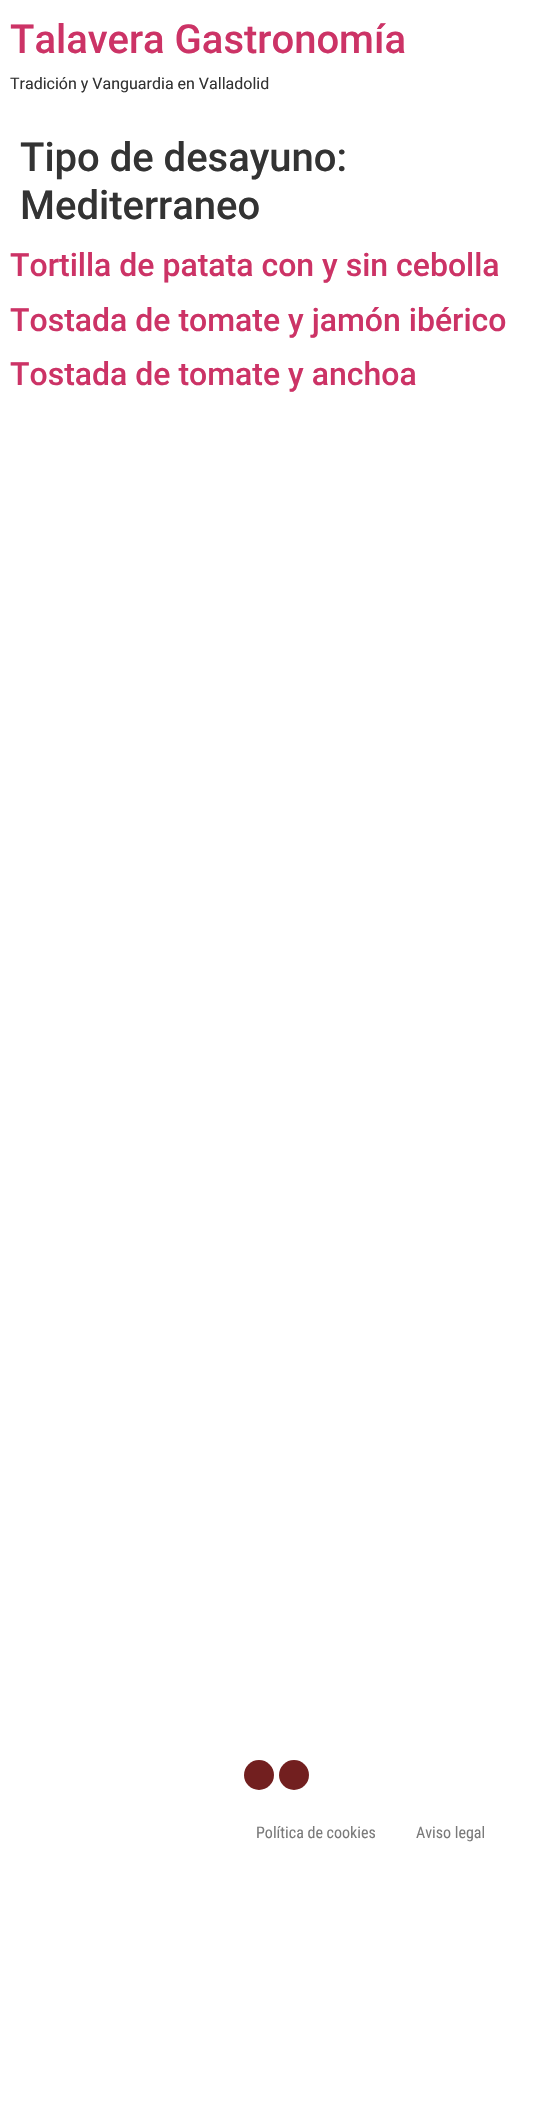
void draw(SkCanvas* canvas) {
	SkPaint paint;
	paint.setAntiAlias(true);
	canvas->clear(0xffffffff);
	SkFont f1(fontMgr->matchFamilyStyle("Roboto", SkFontStyle(500, SkFontStyle::kNormal_Width, SkFontStyle::kUpright_Slant)), 40);
	f1.setSubpixel(true);
	paint.setColor(0xffcc3366);
	canvas->drawString("Talavera Gastronomía", 10, 53, f1, paint);
	SkFont f2(fontMgr->matchFamilyStyle("Roboto", SkFontStyle::Normal()), 16);
	f2.setSubpixel(true);
	paint.setColor(0xff333333);
	canvas->drawString("Tradición y Vanguardia en Valladolid", 10, 89, f2, paint);
	canvas->drawString("Tipo de desayuno:", 20, 171, f1, paint);
	canvas->drawString("Mediterraneo", 20, 219, f1, paint);
	SkFont f3(fontMgr->matchFamilyStyle("Roboto", SkFontStyle(500, SkFontStyle::kNormal_Width, SkFontStyle::kUpright_Slant)), 32);
	f3.setSubpixel(true);
	paint.setColor(0xffcc3366);
	canvas->drawString("Tortilla de patata con y sin cebolla", 10, 276, f3, paint);
	canvas->drawString("Tostada de tomate y jamón ibérico", 10, 331, f3, paint);
	canvas->drawString("Tostada de tomate y anchoa", 10, 385, f3, paint);
	paint.setColor(0xff721f1f);
	canvas->drawCircle(259, 1775, 15, paint);
	canvas->drawCircle(294, 1775, 15, paint);
	SkFont f4(fontMgr->matchFamilyStyle("Roboto Condensed", SkFontStyle::Normal()), 16);
	f4.setSubpixel(true);
	paint.setColor(0xff7a7a7a);
	canvas->drawString("Política de cookies", 256, 1838, f4, paint);
	canvas->drawString("Aviso legal", 416, 1838, f4, paint);
}
